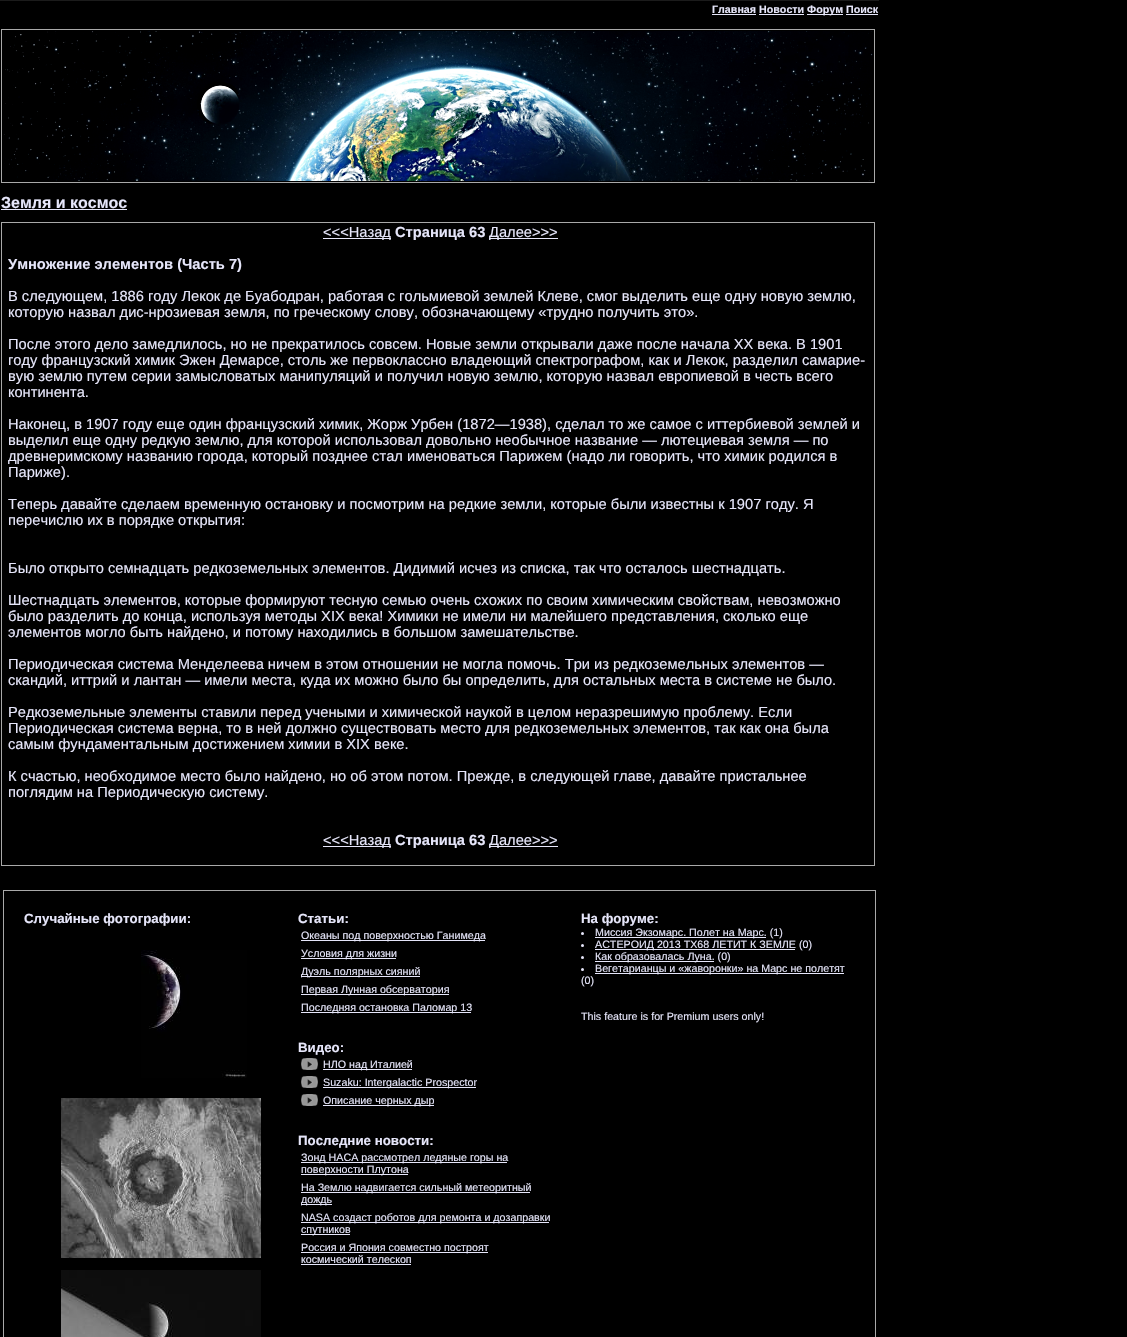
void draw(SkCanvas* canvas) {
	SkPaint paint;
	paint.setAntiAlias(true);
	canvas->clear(0xff000000);
	paint.setColor(0xff1b1b1b);
	canvas->drawRect(SkRect::MakeXYWH(0, 0, 879, 1), paint);
	SkFont f1(fontMgr->matchFamilyStyle("Liberation Sans", SkFontStyle::Bold()), 10.7);
	f1.setSubpixel(true);
	paint.setColor(0xffe6e6fa);
	canvas->drawString("Главная Новости", 712, 13, f1, paint);
	canvas->drawRect(SkRect::MakeXYWH(712, 14, 44, 1), paint);
	canvas->drawRect(SkRect::MakeXYWH(759, 14, 45, 1), paint);
	canvas->drawRect(SkRect::MakeXYWH(807, 14, 36, 1), paint);
	canvas->drawString("Форум Поиск", 807, 13, f1, paint);
	canvas->drawRect(SkRect::MakeXYWH(846, 14, 32, 1), paint);
	canvas->drawImageRect(SkImages::DeferredFromEncodedData(SkData::MakeFromFileName("img1.png")), SkRect::MakeXYWH(1, 29, 874, 154), SkSamplingOptions());
	SkFont f2(fontMgr->matchFamilyStyle("Liberation Sans", SkFontStyle::Bold()), 16);
	f2.setSubpixel(true);
	canvas->drawString("Земля и космос", 1, 208, f2, paint);
	canvas->drawRect(SkRect::MakeXYWH(1, 209, 126, 1), paint);
	paint.setColor(0xffa9a9a9);
	canvas->drawRect(SkRect::MakeXYWH(1, 222, 874, 1), paint);
	canvas->drawRect(SkRect::MakeXYWH(874, 222, 1, 644), paint);
	canvas->drawRect(SkRect::MakeXYWH(1, 865, 874, 1), paint);
	canvas->drawRect(SkRect::MakeXYWH(1, 222, 1, 644), paint);
	paint.setColor(0xffe6e6fa);
	canvas->drawRect(SkRect::MakeXYWH(323, 238, 68, 1), paint);
	SkFont f3(fontMgr->matchFamilyStyle("Liberation Sans", SkFontStyle::Normal()), 14.67);
	f3.setSubpixel(true);
	canvas->drawString("<<<Назад", 323, 237, f3, paint);
	SkFont f4(fontMgr->matchFamilyStyle("Liberation Sans", SkFontStyle::Bold()), 14.67);
	f4.setSubpixel(true);
	canvas->drawString("Страница 63", 395, 237, f4, paint);
	canvas->drawRect(SkRect::MakeXYWH(489, 238, 69, 1), paint);
	canvas->drawString("Далее>>>", 489, 237, f3, paint);
	canvas->drawString("Умножение элементов (Часть 7)", 8, 269, f4, paint);
	canvas->drawString("В следующем, 1886 году Лекок де Буабодран, работая с гольмиевой землей Клеве, смог выделить еще одну новую землю,", 8, 301, f3, paint);
	canvas->drawString("которую назвал дис-нрозиевая земля, по греческому слову, обозначающему «трудно получить это».", 8, 317, f3, paint);
	canvas->drawString("После этого дело замедлилось, но не прекратилось совсем. Новые земли открывали даже после начала XX века. В 1901", 8, 349, f3, paint);
	canvas->drawString("году французский химик Эжен Демарсе, столь же первоклассно владеющий спектрографом, как и Лекок, разделил самарие-", 8, 365, f3, paint);
	canvas->drawString("вую землю путем серии замысловатых манипуляций и получил новую землю, которую назвал европиевой в честь всего", 8, 381, f3, paint);
	canvas->drawString("континента.", 8, 397, f3, paint);
	canvas->drawString("Наконец, в 1907 году еще один французский химик, Жорж Урбен (1872—1938), сделал то же самое с иттербиевой землей и", 8, 429, f3, paint);
	canvas->drawString("выделил еще одну редкую землю, для которой использовал довольно необычное название — лютециевая земля — по", 8, 445, f3, paint);
	canvas->drawString("древнеримскому названию города, который позднее стал именоваться Парижем (надо ли говорить, что химик родился в", 8, 461, f3, paint);
	canvas->drawString("Париже).", 8, 477, f3, paint);
	canvas->drawString("Теперь давайте сделаем временную остановку и посмотрим на редкие земли, которые были известны к 1907 году. Я", 8, 509, f3, paint);
	canvas->drawString("перечислю их в порядке открытия:", 8, 525, f3, paint);
	canvas->drawString("Было открыто семнадцать редкоземельных элементов. Дидимий исчез из списка, так что осталось шестнадцать.", 8, 573, f3, paint);
	canvas->drawString("Шестнадцать элементов, которые формируют тесную семью очень схожих по своим химическим свойствам, невозможно", 8, 605, f3, paint);
	canvas->drawString("было разделить до конца, используя методы XIX века! Химики не имели ни малейшего представления, сколько еще", 8, 621, f3, paint);
	canvas->drawString("элементов могло быть найдено, и потому находились в большом замешательстве.", 8, 637, f3, paint);
	canvas->drawString("Периодическая система Менделеева ничем в этом отношении не могла помочь. Три из редкоземельных элементов —", 8, 669, f3, paint);
	canvas->drawString("скандий, иттрий и лантан — имели места, куда их можно было бы определить, для остальных места в системе не было.", 8, 685, f3, paint);
	canvas->drawString("Редкоземельные элементы ставили перед учеными и химической наукой в целом неразрешимую проблему. Если", 8, 717, f3, paint);
	canvas->drawString("Периодическая система верна, то в ней должно существовать место для редкоземельных элементов, так как она была", 8, 733, f3, paint);
	canvas->drawString("самым фундаментальным достижением химии в XIX веке.", 8, 749, f3, paint);
	canvas->drawString("К счастью, необходимое место было найдено, но об этом потом. Прежде, в следующей главе, давайте пристальнее", 8, 781, f3, paint);
	canvas->drawString("поглядим на Периодическую систему.", 8, 797, f3, paint);
	canvas->drawRect(SkRect::MakeXYWH(323, 846, 68, 1), paint);
	canvas->drawString("<<<Назад", 323, 845, f3, paint);
	canvas->drawString("Страница 63", 395, 845, f4, paint);
	canvas->drawRect(SkRect::MakeXYWH(489, 846, 69, 1), paint);
	canvas->drawString("Далее>>>", 489, 845, f3, paint);
	paint.setStroke(true);
	paint.setStrokeWidth(1);
	paint.setColor(0xffa9a9a9);
	canvas->drawRect(SkRect::MakeXYWH(3.5, 890.5, 872, 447), paint);
	SkFont f5(fontMgr->matchFamilyStyle("Liberation Sans", SkFontStyle::Bold()), 13.3);
	f5.setSubpixel(true);
	paint.setStroke(false);
	paint.setColor(0xffe6e6fa);
	canvas->drawString("Случайные фотографии:", 24, 923, f5, paint);
	canvas->drawImageRect(SkImages::DeferredFromEncodedData(SkData::MakeFromFileName("img2.png")), SkRect::MakeXYWH(141, 950, 106, 128), SkSamplingOptions());
	canvas->drawImageRect(SkImages::DeferredFromEncodedData(SkData::MakeFromFileName("img3.png")), SkRect::MakeXYWH(61, 1098, 200, 160), SkSamplingOptions());
	canvas->drawImageRect(SkImages::DeferredFromEncodedData(SkData::MakeFromFileName("img4.png")), SkRect::MakeXYWH(61, 1270, 200, 67), SkSamplingOptions());
	canvas->drawString("Статьи:", 298, 923, f5, paint);
	canvas->drawRect(SkRect::MakeXYWH(301, 940, 184, 1), paint);
	SkFont f6(fontMgr->matchFamilyStyle("Liberation Sans", SkFontStyle::Normal()), 10.7);
	f6.setSubpixel(true);
	canvas->drawString("Океаны под поверхностью Ганимеда", 301, 939, f6, paint);
	canvas->drawRect(SkRect::MakeXYWH(301, 958, 95, 1), paint);
	canvas->drawString("Условия для жизни", 301, 957, f6, paint);
	canvas->drawRect(SkRect::MakeXYWH(301, 976, 119, 1), paint);
	canvas->drawString("Дуэль полярных сияний", 301, 975, f6, paint);
	canvas->drawRect(SkRect::MakeXYWH(301, 994, 148, 1), paint);
	canvas->drawString("Первая Лунная обсерватория", 301, 993, f6, paint);
	canvas->drawRect(SkRect::MakeXYWH(301, 1012, 170, 1), paint);
	canvas->drawString("Последняя остановка Паломар 13", 301, 1011, f6, paint);
	canvas->drawString("Видео:", 298, 1052, f5, paint);
	canvas->drawImageRect(SkImages::DeferredFromEncodedData(SkData::MakeFromFileName("img5.png")), SkRect::MakeXYWH(301, 1058, 17, 12), SkSamplingOptions());
	canvas->drawRect(SkRect::MakeXYWH(323, 1069, 89, 1), paint);
	canvas->drawString("НЛО над Италией", 323, 1068, f6, paint);
	canvas->drawImageRect(SkImages::DeferredFromEncodedData(SkData::MakeFromFileName("img5.png")), SkRect::MakeXYWH(301, 1076, 17, 12), SkSamplingOptions());
	canvas->drawRect(SkRect::MakeXYWH(323, 1087, 153, 1), paint);
	canvas->drawString("Suzaku: Intergalactic Prospector", 323, 1086, f6, paint);
	canvas->drawImageRect(SkImages::DeferredFromEncodedData(SkData::MakeFromFileName("img5.png")), SkRect::MakeXYWH(301, 1094, 17, 12), SkSamplingOptions());
	canvas->drawRect(SkRect::MakeXYWH(323, 1105, 111, 1), paint);
	canvas->drawString("Описание черных дыр", 323, 1104, f6, paint);
	canvas->drawString("Последние новости:", 298, 1145, f5, paint);
	canvas->drawRect(SkRect::MakeXYWH(301, 1162, 206, 1), paint);
	canvas->drawString("Зонд НАСА рассмотрел ледяные горы на", 301, 1161, f6, paint);
	canvas->drawRect(SkRect::MakeXYWH(301, 1174, 107, 1), paint);
	canvas->drawString("поверхности Плутона", 301, 1173, f6, paint);
	canvas->drawRect(SkRect::MakeXYWH(301, 1192, 229, 1), paint);
	canvas->drawString("На Землю надвигается сильный метеоритный", 301, 1191, f6, paint);
	canvas->drawRect(SkRect::MakeXYWH(301, 1204, 31, 1), paint);
	canvas->drawString("дождь", 301, 1203, f6, paint);
	canvas->drawRect(SkRect::MakeXYWH(301, 1222, 248, 1), paint);
	canvas->drawString("NASA создаст роботов для ремонта и дозаправки", 301, 1221, f6, paint);
	canvas->drawRect(SkRect::MakeXYWH(301, 1234, 49, 1), paint);
	canvas->drawString("спутников", 301, 1233, f6, paint);
	canvas->drawRect(SkRect::MakeXYWH(301, 1252, 187, 1), paint);
	canvas->drawString("Россия и Япония совместно построят", 301, 1251, f6, paint);
	canvas->drawString("космический телескоп", 301, 1263, f6, paint);
	canvas->drawRect(SkRect::MakeXYWH(301, 1264, 110, 1), paint);
	canvas->drawString("На форуме:", 581, 923, f5, paint);
	canvas->drawCircle(582.5, 933.5, 1.5, paint);
	canvas->drawRect(SkRect::MakeXYWH(595, 937, 171, 1), paint);
	canvas->drawString("Миссия Экзомарс. Полет на Марс. (1)", 595, 936, f6, paint);
	canvas->drawCircle(582.5, 945.5, 1.5, paint);
	canvas->drawRect(SkRect::MakeXYWH(595, 949, 200, 1), paint);
	canvas->drawString("АСТЕРОИД 2013 TX68 ЛЕТИТ К ЗЕМЛЕ (0)", 595, 948, f6, paint);
	canvas->drawCircle(582.5, 957.5, 1.5, paint);
	canvas->drawRect(SkRect::MakeXYWH(595, 961, 119, 1), paint);
	canvas->drawString("Как образовалась Луна. (0)", 595, 960, f6, paint);
	canvas->drawCircle(582.5, 969.5, 1.5, paint);
	canvas->drawRect(SkRect::MakeXYWH(595, 973, 249, 1), paint);
	canvas->drawString("Вегетарианцы и «жаворонки» на Марс не полетят", 595, 972, f6, paint);
	canvas->drawString("(0)", 581, 984, f6, paint);
	canvas->drawString("This feature is for Premium users only!", 581, 1020, f6, paint);
}
